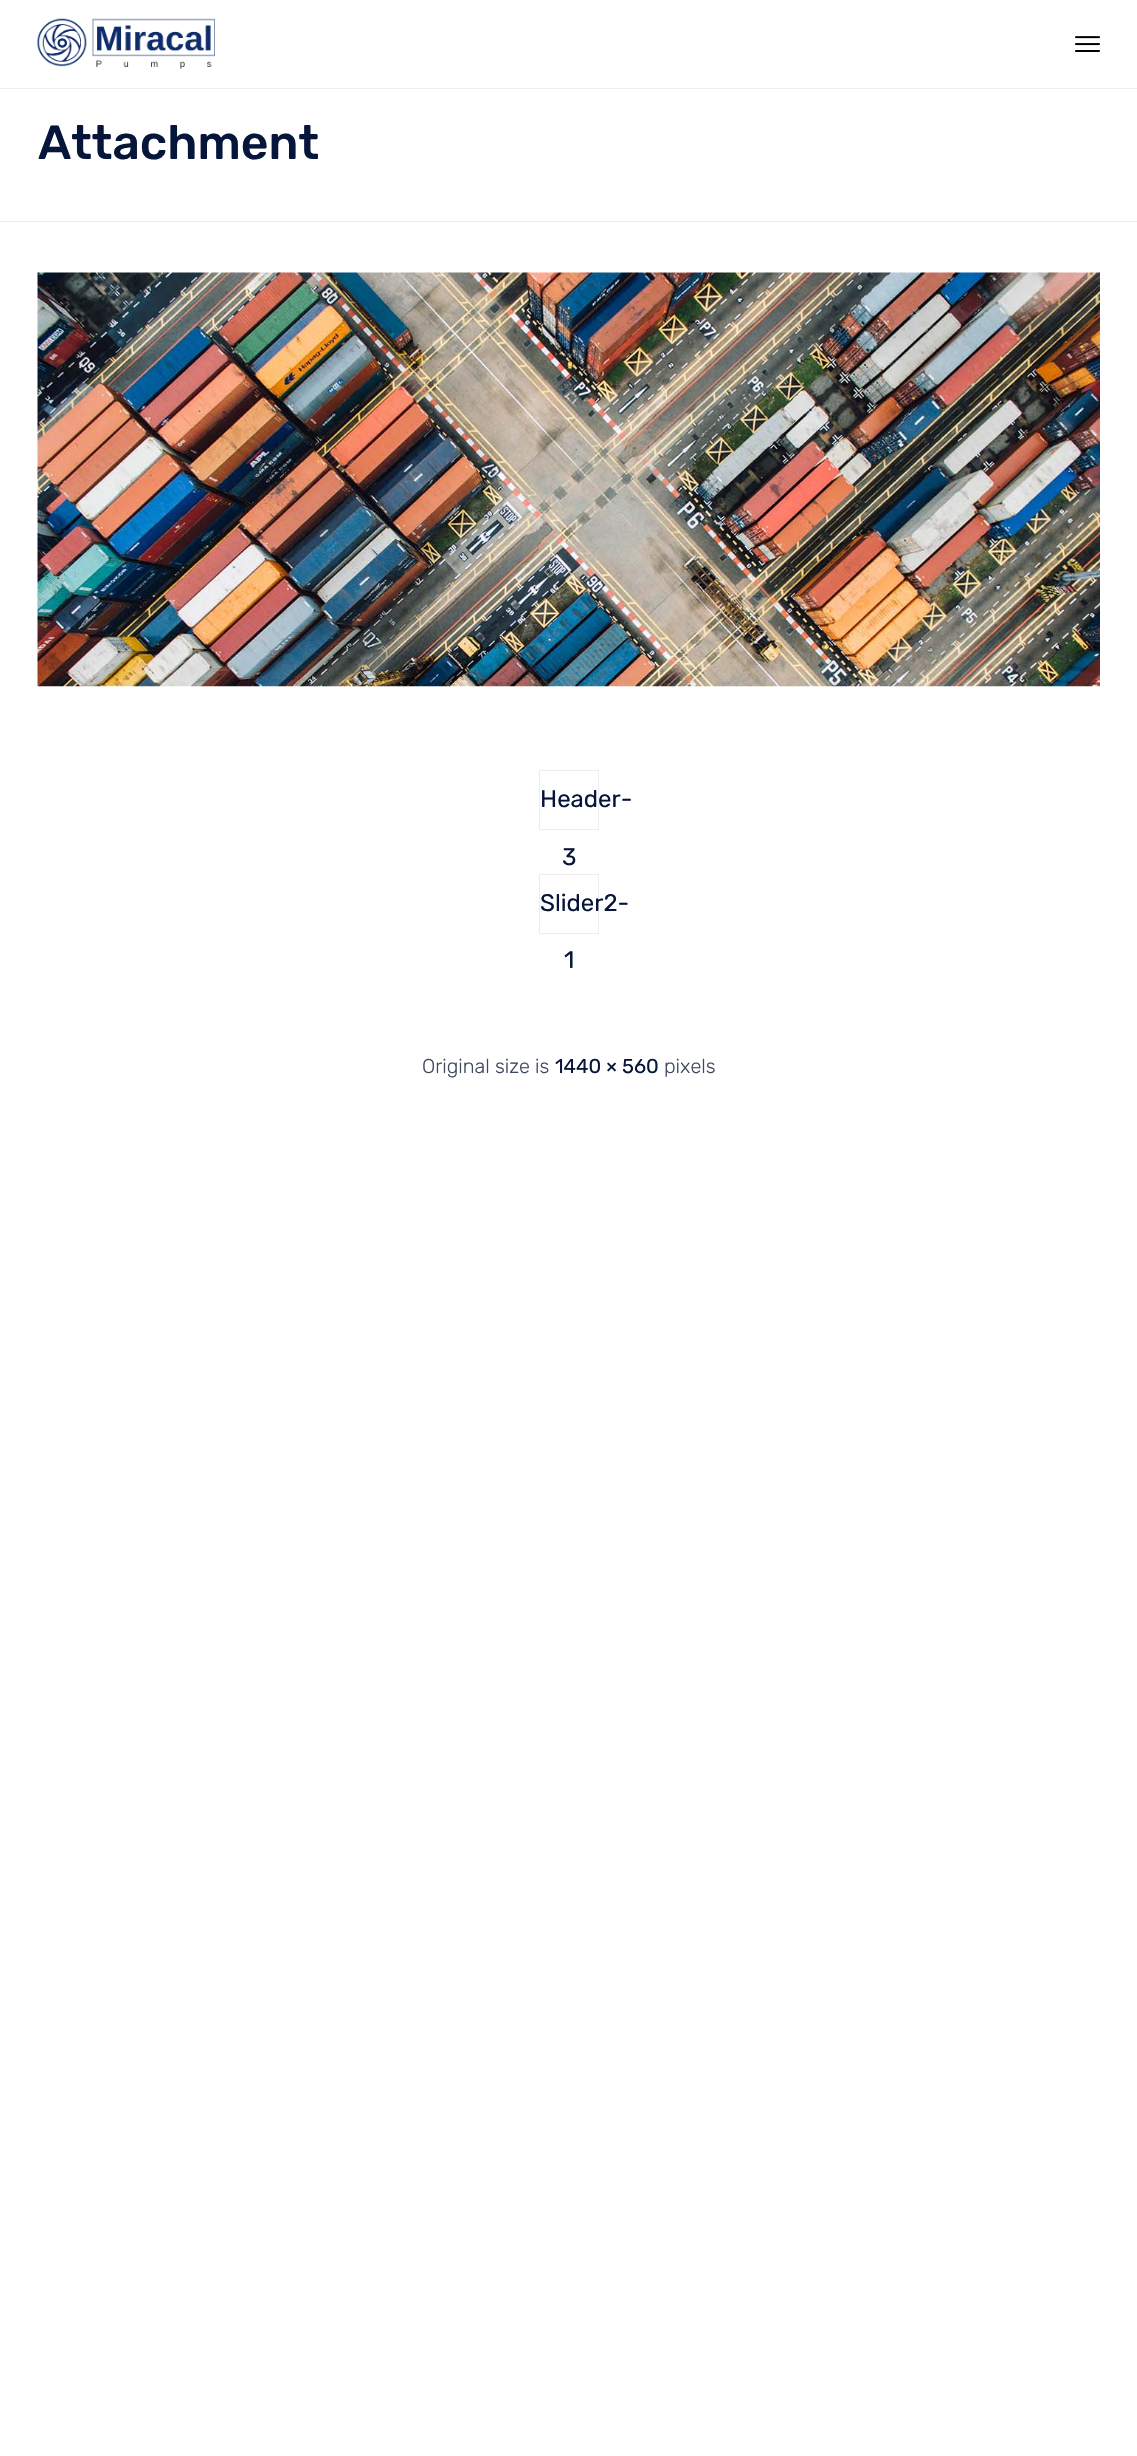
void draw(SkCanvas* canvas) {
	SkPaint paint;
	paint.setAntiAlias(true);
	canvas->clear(0xffffffff);
	paint.setColor(0xffededed);
	canvas->drawRect(SkRect::MakeXYWH(0, 88, 1137, 1), paint);
	canvas->drawImageRect(SkImages::DeferredFromEncodedData(SkData::MakeFromFileName("img1.png")), SkRect::MakeXYWH(37, 18, 178, 51), SkSamplingOptions());
	canvas->drawImageRect(SkImages::DeferredFromEncodedData(SkData::MakeFromFileName("img2.png")), SkRect::MakeXYWH(1075, 36, 25, 16), SkSamplingOptions());
	canvas->drawRect(SkRect::MakeXYWH(0, 221, 1137, 1), paint);
	SkFont f1(fontMgr->matchFamilyStyle("Rubik", SkFontStyle(500, SkFontStyle::kNormal_Width, SkFontStyle::kUpright_Slant)), 48);
	f1.setSubpixel(true);
	paint.setColor(0xff06163a);
	canvas->drawString("Attachment", 38, 159, f1, paint);
	canvas->drawImageRect(SkImages::DeferredFromEncodedData(SkData::MakeFromFileName("img3.png")), SkRect::MakeXYWH(37, 272, 1063, 415), SkSamplingOptions());
	paint.setStroke(true);
	paint.setStrokeWidth(1);
	paint.setColor(0xffededed);
	canvas->drawRect(SkRect::MakeXYWH(539.5, 770.5, 59, 59), paint);
	SkFont f2(fontMgr->matchFamilyStyle("Rubik", SkFontStyle::Normal()), 24);
	f2.setSubpixel(true);
	paint.setStroke(false);
	paint.setColor(0xff06163a);
	canvas->drawString("Header-", 540, 807, f2, paint);
	canvas->drawString("3", 562, 865, f2, paint);
	paint.setStroke(true);
	paint.setColor(0xffededed);
	canvas->drawRect(SkRect::MakeXYWH(539.5, 874.5, 59, 59), paint);
	paint.setStroke(false);
	paint.setColor(0xff06163a);
	canvas->drawString("Slider2-", 540, 911, f2, paint);
	canvas->drawString("1", 564, 968, f2, paint);
	SkFont f3(fontMgr->matchFamilyStyle("Rubik", SkFontStyle(300, SkFontStyle::kNormal_Width, SkFontStyle::kUpright_Slant)), 20);
	f3.setSubpixel(true);
	paint.setColor(0xff3f485d);
	canvas->drawString("Original size is", 422, 1073, f3, paint);
	SkFont f4(fontMgr->matchFamilyStyle("Rubik", SkFontStyle::Normal()), 20);
	f4.setSubpixel(true);
	paint.setColor(0xff06163a);
	canvas->drawString("1440 × 560", 555, 1073, f4, paint);
	paint.setColor(0xff3f485d);
	canvas->drawString("pixels", 664, 1073, f3, paint);
}
